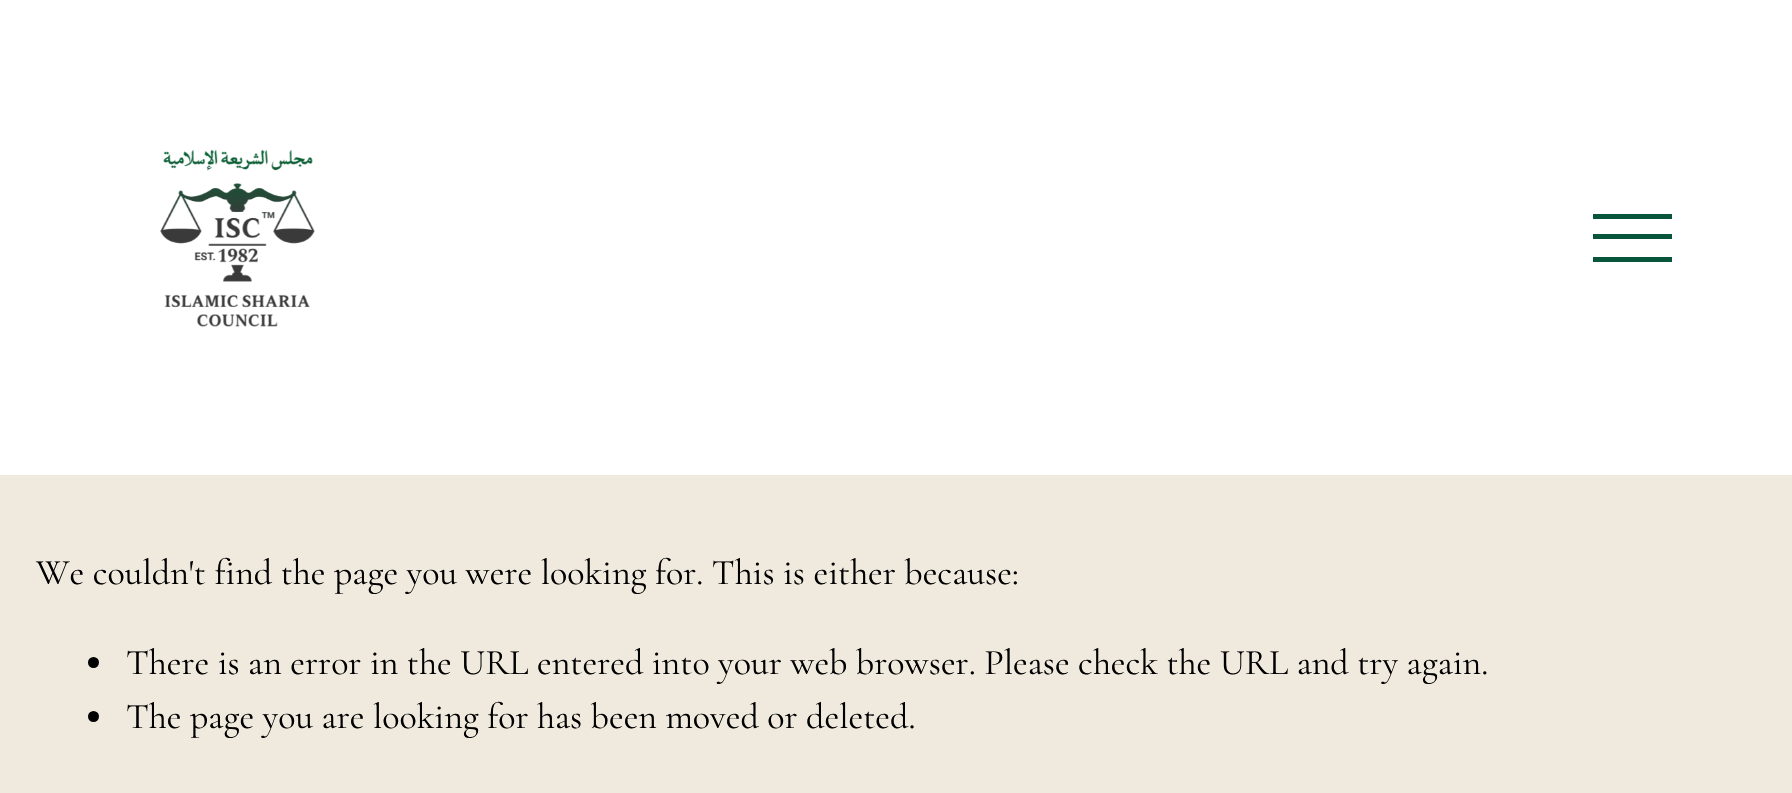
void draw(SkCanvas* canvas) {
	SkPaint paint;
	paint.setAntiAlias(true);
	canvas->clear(0xfff0eade);
	paint.setColor(0xffffffff);
	canvas->drawRect(SkRect::MakeXYWH(0, 0, 1792, 475), paint);
	canvas->drawImageRect(SkImages::DeferredFromEncodedData(SkData::MakeFromFileName("img1.png")), SkRect::MakeXYWH(160, 149, 155, 178), SkSamplingOptions());
	paint.setColor(0xff07553b);
	canvas->drawRect(SkRect::MakeXYWH(1593, 214, 79, 5), paint);
	canvas->drawRect(SkRect::MakeXYWH(1593, 234, 79, 5), paint);
	canvas->drawRect(SkRect::MakeXYWH(1593, 257, 79, 5), paint);
	SkFont f1(fontMgr->matchFamilyStyle("Cormorant Garamond", SkFontStyle::Normal()), 36);
	f1.setSubpixel(true);
	paint.setColor(0xff000000);
	canvas->drawString("We couldn't find the page you were looking for. This is either because:", 36, 584, f1, paint);
	canvas->drawCircle(93.5, 662.5, 5.5, paint);
	canvas->drawString("There is an error in the URL entered into your web browser. Please check the URL and try again.", 126, 674, f1, paint);
	canvas->drawCircle(93.5, 716.5, 5.5, paint);
	canvas->drawString("The page you are looking for has been moved or deleted.", 126, 728, f1, paint);
}
